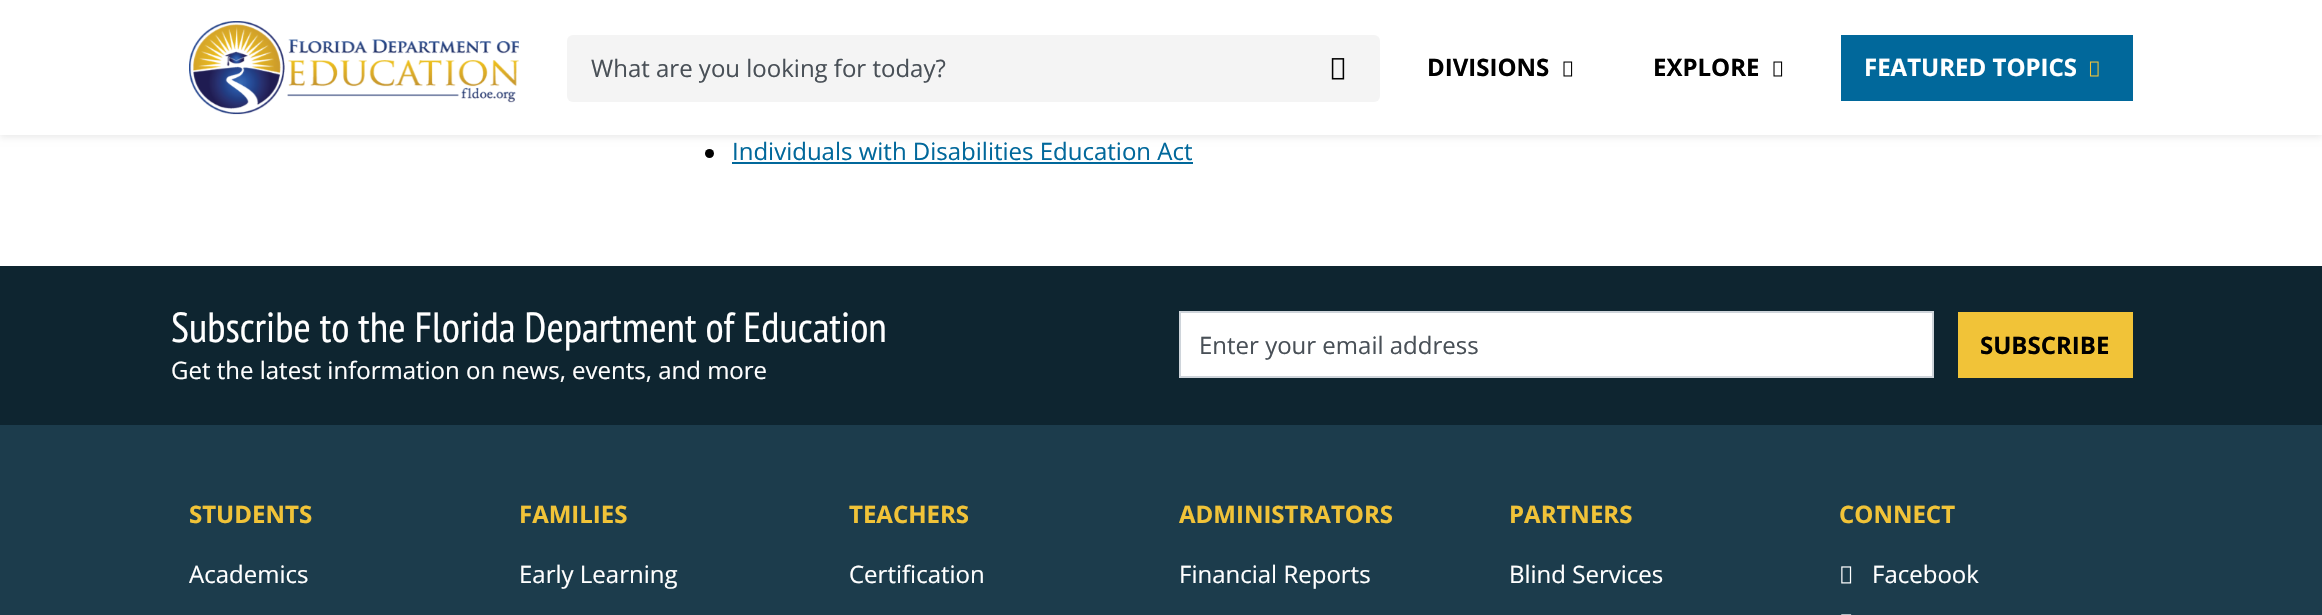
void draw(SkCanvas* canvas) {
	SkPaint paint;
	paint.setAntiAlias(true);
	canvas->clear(0xffffffff);
	paint.setColor(0x12000000);
	paint.setMaskFilter(SkMaskFilter::MakeBlur(kNormal_SkBlurStyle, 3));
	canvas->drawRect(SkRect::MakeXYWH(0, 3, 2322, 135), paint);
	paint.setMaskFilter(nullptr);
	paint.setColor(0xffffffff);
	canvas->drawRect(SkRect::MakeXYWH(0, 0, 2322, 135), paint);
	canvas->drawImageRect(SkImages::DeferredFromEncodedData(SkData::MakeFromFileName("img1.png")), SkRect::MakeXYWH(189, 21, 330, 94), SkSamplingOptions());
	paint.setColor(0xfff4f4f4);
	canvas->drawRoundRect(SkRect::MakeXYWH(567, 35, 813, 67), 6, 6, paint);
	SkFont f1(fontMgr->matchFamilyStyle("Open Sans", SkFontStyle::Normal()), 24);
	f1.setSubpixel(true);
	paint.setColor(0xff495057);
	canvas->drawString("What are you looking for today?", 591, 77, f1, paint);
	canvas->drawImageRect(SkImages::DeferredFromEncodedData(SkData::MakeFromFileName("img2.png")), SkRect::MakeXYWH(1331, 58, 14, 22), SkSamplingOptions());
	SkFont f2(fontMgr->matchFamilyStyle("Open Sans", SkFontStyle::Bold()), 24);
	f2.setSubpixel(true);
	paint.setColor(0xff000000);
	canvas->drawString("DIVISIONS", 1427, 76, f2, paint);
	canvas->drawImageRect(SkImages::DeferredFromEncodedData(SkData::MakeFromFileName("img3.png")), SkRect::MakeXYWH(1563, 61, 10, 16), SkSamplingOptions());
	canvas->drawString("EXPLORE", 1653, 76, f2, paint);
	canvas->drawImageRect(SkImages::DeferredFromEncodedData(SkData::MakeFromFileName("img3.png")), SkRect::MakeXYWH(1773, 61, 10, 16), SkSamplingOptions());
	paint.setColor(0xff01689b);
	canvas->drawRect(SkRect::MakeXYWH(1841, 35, 292, 66), paint);
	paint.setColor(0xffffffff);
	canvas->drawString("FEATURED TOPICS", 1864, 76, f2, paint);
	canvas->drawImageRect(SkImages::DeferredFromEncodedData(SkData::MakeFromFileName("img4.png")), SkRect::MakeXYWH(2089, 61, 10, 16), SkSamplingOptions());
	paint.setColor(0xff000000);
	canvas->drawCircle(709.5, 153.5, 4.5, paint);
	paint.setColor(0xff01689b);
	canvas->drawString("Individuals with Disabilities Education Act", 732, 160, f1, paint);
	canvas->drawRect(SkRect::MakeXYWH(732, 162, 461, 2), paint);
	paint.setColor(0xff0e2530);
	canvas->drawRect(SkRect::MakeXYWH(0, 266, 2322, 159), paint);
	SkFont f3(fontMgr->matchFamilyStyle("PT Sans Narrow", SkFontStyle::Normal()), 42);
	f3.setSubpixel(true);
	paint.setColor(0xffffffff);
	canvas->drawString("Subscribe to the Florida Department of Education", 171, 342, f3, paint);
	canvas->drawString("Get the latest information on news, events, and more", 171, 379, f1, paint);
	canvas->drawRect(SkRect::MakeXYWH(1180, 312, 753, 65), paint);
	paint.setStroke(true);
	paint.setStrokeWidth(2);
	paint.setColor(0xffced4da);
	canvas->drawRect(SkRect::MakeXYWH(1180, 312, 753, 65), paint);
	paint.setStroke(false);
	paint.setColor(0xff495057);
	canvas->drawString("Enter your email address", 1199, 354, f1, paint);
	paint.setColor(0xfff1c338);
	canvas->drawRect(SkRect::MakeXYWH(1958, 312, 175, 66), paint);
	paint.setColor(0xff000000);
	canvas->drawString("SUBSCRIBE", 1980, 354, f2, paint);
	paint.setColor(0xff1c3c4c);
	canvas->drawRect(SkRect::MakeXYWH(0, 425, 2322, 190), paint);
	paint.setColor(0xfff1c338);
	canvas->drawString("STUDENTS", 189, 523, f2, paint);
	paint.setColor(0xffffffff);
	canvas->drawString("Academics", 189, 583, f1, paint);
	paint.setColor(0xfff1c338);
	canvas->drawString("FAMILIES", 519, 523, f2, paint);
	paint.setColor(0xffffffff);
	canvas->drawString("Early Learning", 519, 583, f1, paint);
	paint.setColor(0xfff1c338);
	canvas->drawString("TEACHERS", 849, 523, f2, paint);
	paint.setColor(0xffffffff);
	canvas->drawString("Certification", 849, 583, f1, paint);
	paint.setColor(0xfff1c338);
	canvas->drawString("ADMINISTRATORS", 1179, 523, f2, paint);
	paint.setColor(0xffffffff);
	canvas->drawString("Financial Reports", 1179, 583, f1, paint);
	paint.setColor(0xfff1c338);
	canvas->drawString("PARTNERS", 1509, 523, f2, paint);
	paint.setColor(0xffffffff);
	canvas->drawString("Blind Services", 1509, 583, f1, paint);
	paint.setColor(0xfff1c338);
	canvas->drawString("CONNECT", 1839, 523, f2, paint);
	canvas->drawImageRect(SkImages::DeferredFromEncodedData(SkData::MakeFromFileName("img5.png")), SkRect::MakeXYWH(1841, 566, 11, 18), SkSamplingOptions());
	paint.setColor(0xffffffff);
	canvas->drawString("Facebook", 1872, 583, f1, paint);
	canvas->drawImageRect(SkImages::DeferredFromEncodedData(SkData::MakeFromFileName("img6.png")), SkRect::MakeXYWH(1841, 614, 11, 1), SkSamplingOptions());
}
